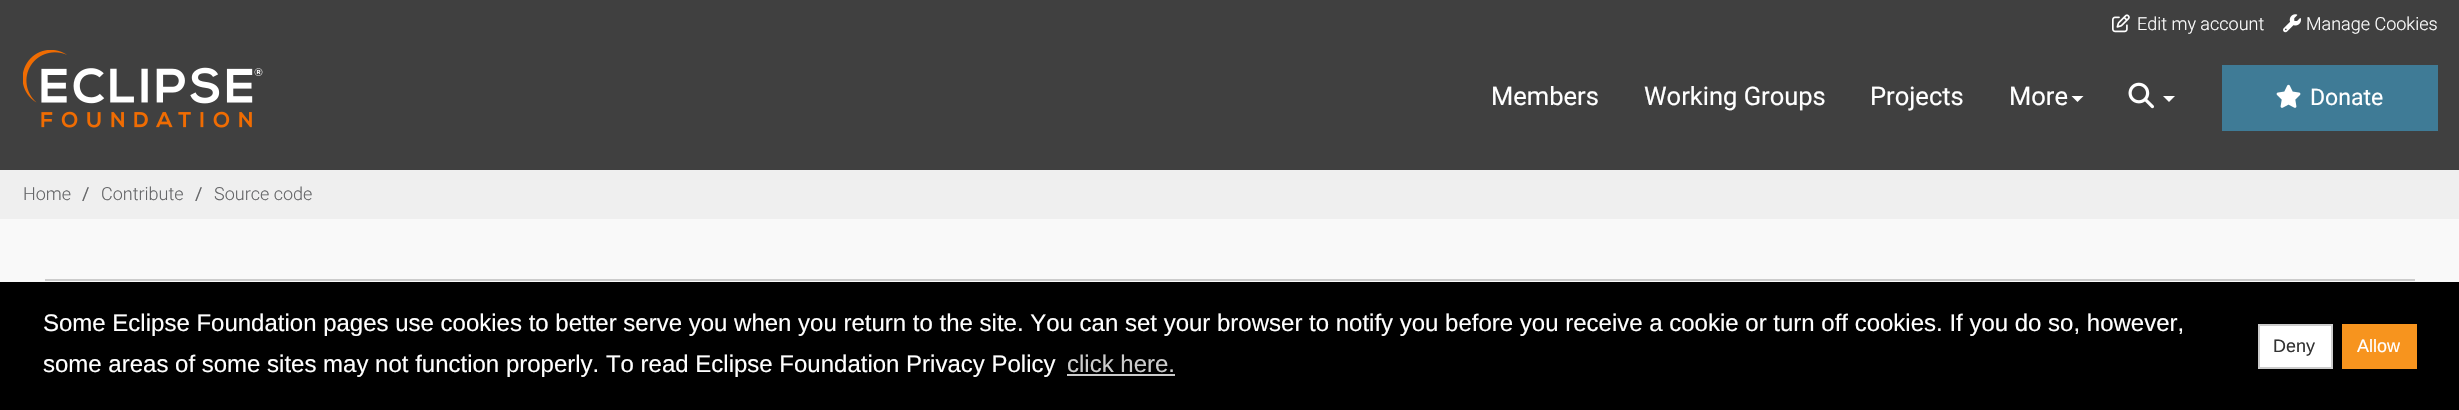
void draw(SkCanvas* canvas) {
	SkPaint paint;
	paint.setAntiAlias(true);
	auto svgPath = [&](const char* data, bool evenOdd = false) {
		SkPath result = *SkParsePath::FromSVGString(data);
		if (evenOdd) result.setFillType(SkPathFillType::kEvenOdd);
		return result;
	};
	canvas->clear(0xfff9f9f9);
	paint.setColor(0xff404040);
	canvas->drawRect(SkRect::MakeXYWH(0, 0, 2459, 170), paint);
	canvas->drawImageRect(SkImages::DeferredFromEncodedData(SkData::MakeFromFileName("img1.png")), SkRect::MakeXYWH(2112, 14, 18, 19), SkSamplingOptions());
	SkFont f1(fontMgr->matchFamilyStyle("Roboto", SkFontStyle(300, SkFontStyle::kNormal_Width, SkFontStyle::kUpright_Slant)), 18);
	f1.setSubpixel(true);
	paint.setColor(0xffffffff);
	canvas->drawString("Edit my account", 2137, 30, f1, paint);
	canvas->drawImageRect(SkImages::DeferredFromEncodedData(SkData::MakeFromFileName("img2.png")), SkRect::MakeXYWH(2283, 14, 18, 19), SkSamplingOptions());
	canvas->drawString("Manage Cookies", 2306, 30, f1, paint);
	canvas->drawImageRect(SkImages::DeferredFromEncodedData(SkData::MakeFromFileName("img3.png")), SkRect::MakeXYWH(23, 50, 240, 78), SkSamplingOptions());
	SkFont f2(fontMgr->matchFamilyStyle("Roboto", SkFontStyle::Normal()), 25.5);
	f2.setSubpixel(true);
	canvas->drawString("Members", 1491, 105, f2, paint);
	canvas->drawString("Working Groups", 1644, 105, f2, paint);
	canvas->drawString("Projects", 1870, 105, f2, paint);
	canvas->drawString("More", 2009, 105, f2, paint);
	canvas->drawPath(svgPath("M2071.5 96H2083.5L2077.5 102Z"), paint);
	canvas->drawImageRect(SkImages::DeferredFromEncodedData(SkData::MakeFromFileName("img4.png")), SkRect::MakeXYWH(2128, 82, 26, 27), SkSamplingOptions());
	canvas->drawPath(svgPath("M2163 96H2175L2169 102Z"), paint);
	paint.setColor(0xff3f7b96);
	canvas->drawRect(SkRect::MakeXYWH(2222, 65, 216, 66), paint);
	canvas->drawImageRect(SkImages::DeferredFromEncodedData(SkData::MakeFromFileName("img5.png")), SkRect::MakeXYWH(2276, 84, 25, 24), SkSamplingOptions());
	SkFont f3(fontMgr->matchFamilyStyle("Roboto", SkFontStyle::Normal()), 23);
	f3.setSubpixel(true);
	paint.setColor(0xffffffff);
	canvas->drawString("Donate", 2310, 105, f3, paint);
	paint.setColor(0xffefefef);
	canvas->drawRect(SkRect::MakeXYWH(0, 170, 2459, 49), paint);
	paint.setColor(0xff656668);
	canvas->drawString("Home", 23, 200, f1, paint);
	SkFont f4(fontMgr->matchFamilyStyle("Roboto", SkFontStyle::Normal()), 18);
	f4.setSubpixel(true);
	canvas->drawString("/", 82, 200, f4, paint);
	canvas->drawString("Contribute", 101, 200, f1, paint);
	canvas->drawString("/", 195, 200, f4, paint);
	canvas->drawString("Source code", 214, 200, f1, paint);
	paint.setColor(0xffcccccc);
	canvas->drawRect(SkRect::MakeXYWH(45, 279, 2370, 2), paint);
	paint.setColor(0xff000000);
	canvas->drawRect(SkRect::MakeXYWH(0, 282, 2459, 128), paint);
	SkFont f5(fontMgr->matchFamilyStyle("Liberation Sans", SkFontStyle::Normal()), 24);
	f5.setSubpixel(true);
	paint.setColor(0xffffffff);
	canvas->drawString("Some Eclipse Foundation pages use cookies to better serve you when you return to the site. You can set your browser to notify you before you receive a cookie or turn off cookies. If you do so, however,", 43, 331, f5, paint);
	canvas->drawString("some areas of some sites may not function properly. To read Eclipse Foundation Privacy Policy", 43, 372, f5, paint);
	paint.setColor(0xffcccccc);
	canvas->drawString("click here.", 1067, 372, f5, paint);
	canvas->drawRect(SkRect::MakeXYWH(1067, 374, 108, 2), paint);
	paint.setColor(0xffffffff);
	canvas->drawRect(SkRect::MakeXYWH(2259, 325, 73, 43), paint);
	paint.setStroke(true);
	paint.setStrokeWidth(2);
	paint.setColor(0xffcccccc);
	canvas->drawRect(SkRect::MakeXYWH(2259, 325, 73, 43), paint);
	SkFont f6(fontMgr->matchFamilyStyle("Liberation Sans", SkFontStyle::Normal()), 18);
	f6.setSubpixel(true);
	paint.setStroke(false);
	paint.setColor(0xff333333);
	canvas->drawString("Deny", 2273, 352, f6, paint);
	paint.setColor(0xfff7941e);
	canvas->drawRect(SkRect::MakeXYWH(2342, 324, 75, 45), paint);
	paint.setColor(0xffffffff);
	canvas->drawString("Allow", 2357, 352, f6, paint);
}
